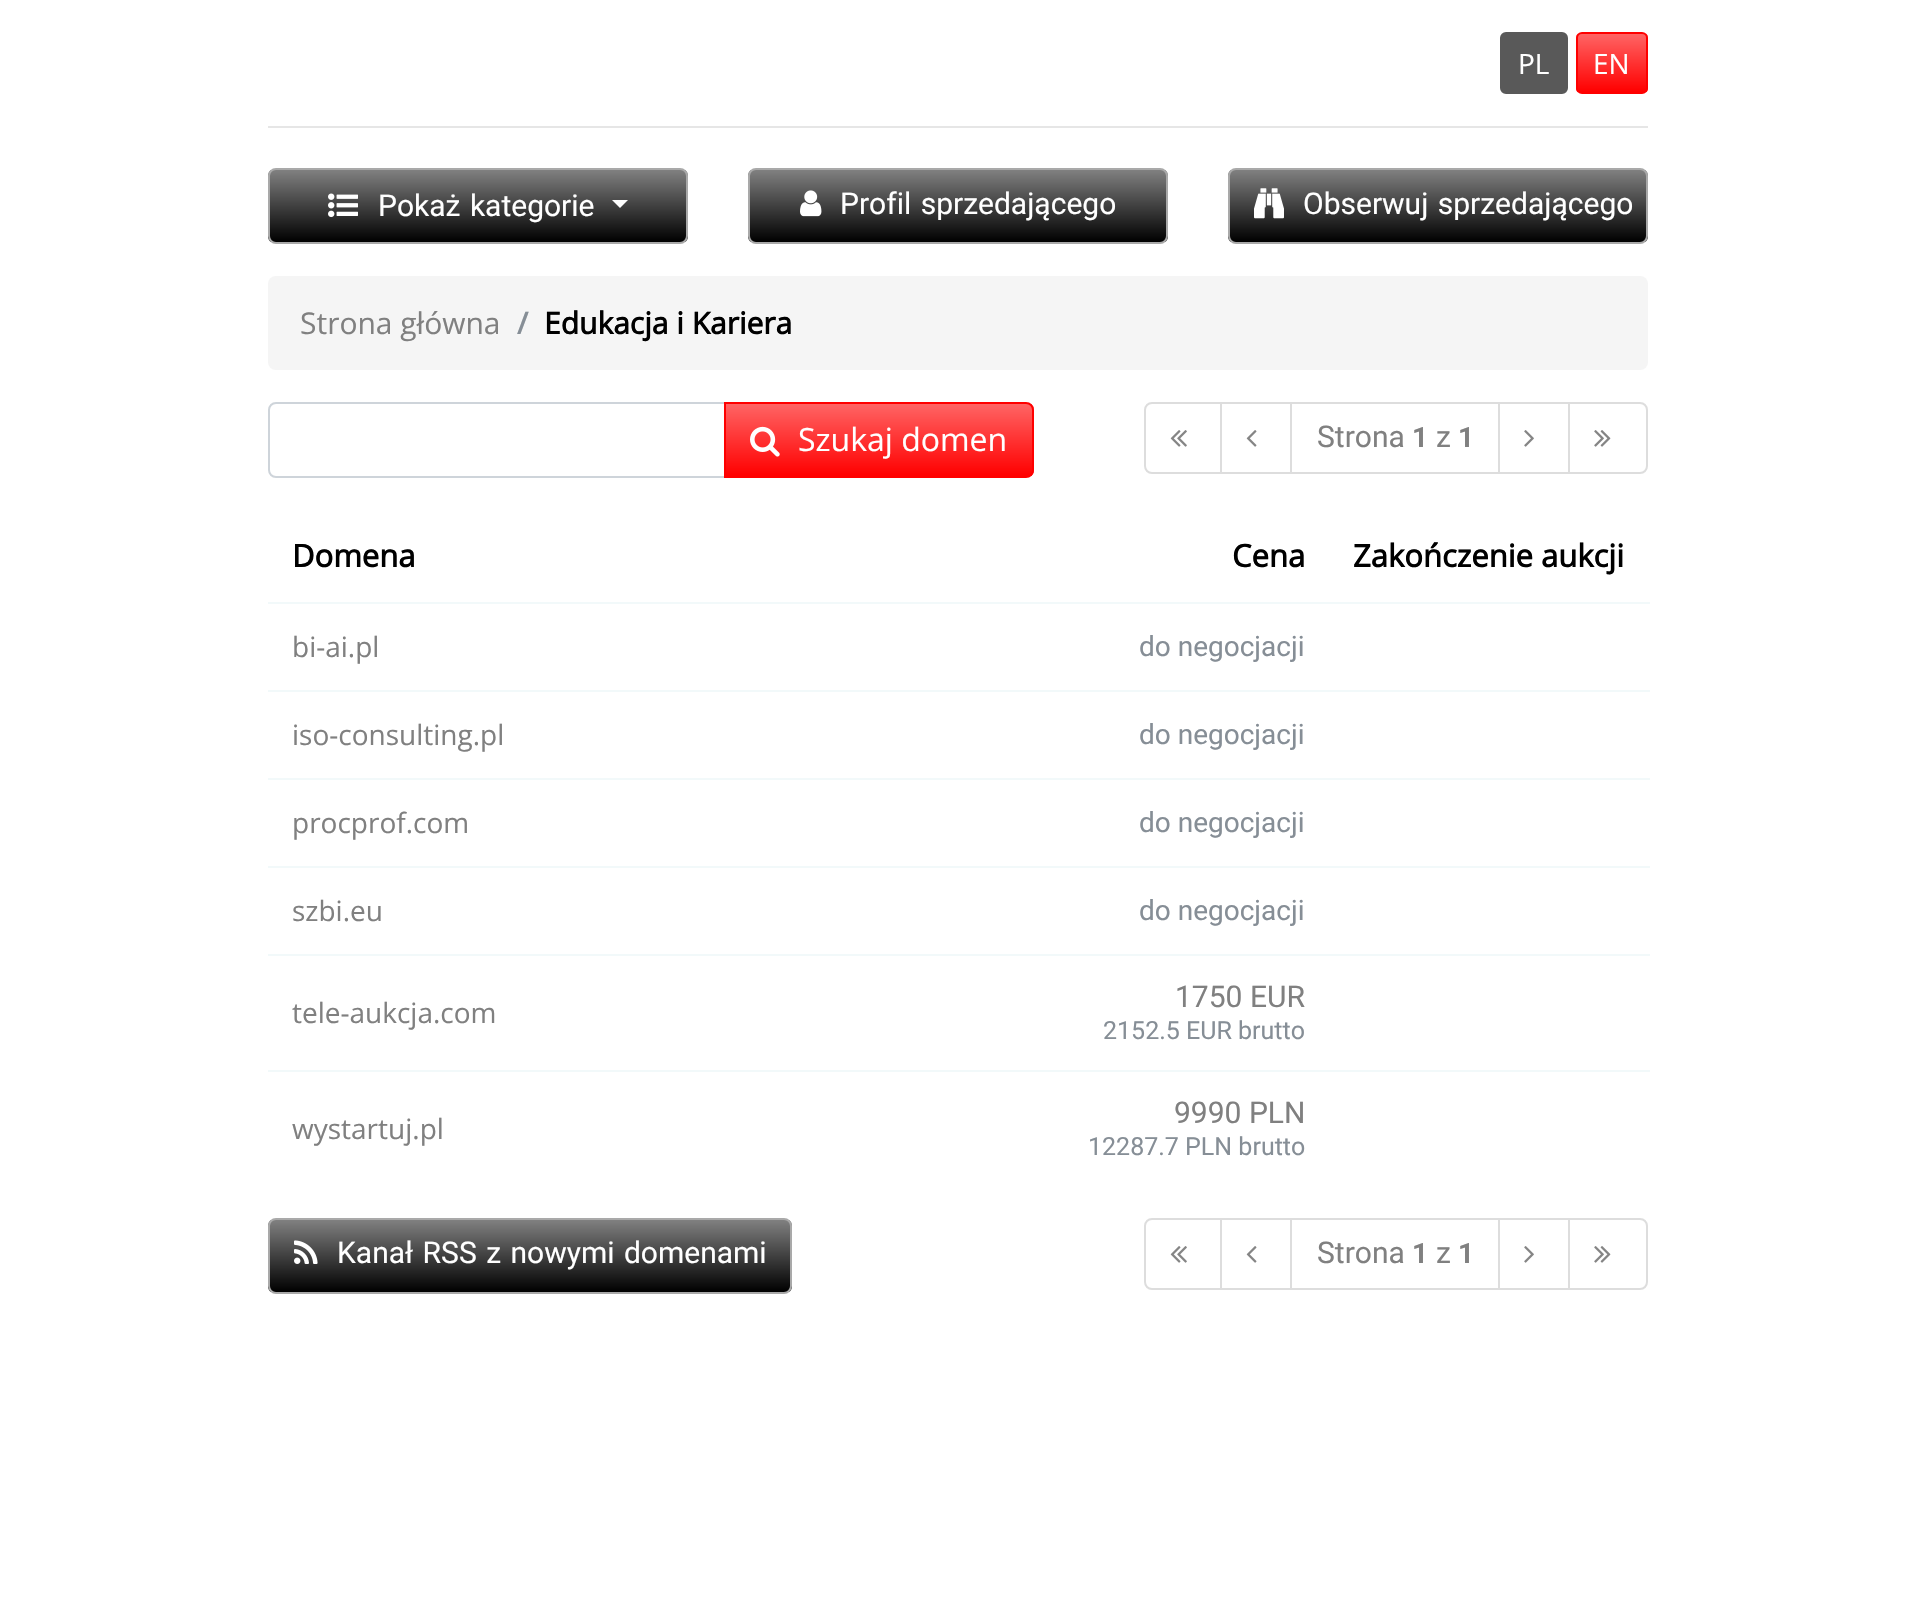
void draw(SkCanvas* canvas) {
	SkPaint paint;
	paint.setAntiAlias(true);
	auto spacedText = [&](const char* s, float x, float y, const SkFont& font, const SkPaint& ink, float letter, float word) {
		std::vector<SkGlyphID> glyphs(font.countText(s, strlen(s), SkTextEncoding::kUTF8));
		std::vector<float> xs(glyphs.size());
		font.textToGlyphs(s, strlen(s), SkTextEncoding::kUTF8, glyphs);
		font.getXPos(glyphs, xs, x);
		float extra = 0;
		for (size_t i = 0; i < glyphs.size(); i++) {
			xs[i] += extra;
			extra += letter + word * (glyphs[i] == font.unicharToGlyph(' '));
		}
		canvas->drawTextBlob(SkTextBlob::MakeFromPosHGlyphs(glyphs, xs, y, font), 0, 0, ink);
	};
	auto svgPath = [&](const char* data, bool evenOdd = false) {
		SkPath result = *SkParsePath::FromSVGString(data);
		if (evenOdd) result.setFillType(SkPathFillType::kEvenOdd);
		return result;
	};
	canvas->clear(0xffffffff);
	paint.setColor(0xff595959);
	canvas->drawRoundRect(SkRect::MakeXYWH(1501, 33, 66, 60), 5, 5, paint);
	paint.setStroke(true);
	paint.setStrokeWidth(2);
	canvas->drawRoundRect(SkRect::MakeXYWH(1501, 33, 66, 60), 5, 5, paint);
	SkFont f1(fontMgr->matchFamilyStyle("Open Sans", SkFontStyle::Normal()), 28);
	f1.setSubpixel(true);
	paint.setStroke(false);
	paint.setColor(0xffffffff);
	canvas->drawString("PL", 1518, 74, f1, paint);
	canvas->save();
	canvas->clipPath(svgPath("M1582 32H1642C1645.5 32 1648 34.5 1648 38V88C1648 91.5 1645.5 94 1642 94H1582C1578.5 94 1576 91.5 1576 88V38C1576 34.5 1578.5 32 1582 32Z"), true);
	{
		const SkColor colors[] = {0xffff0000, 0xffff6464};
		const float stops[] = {0, 1};
		const SkPoint ends[] = {{1612, 92}, {1612, 34}};
		paint.setShader(SkGradientShader::MakeLinear(ends, colors, stops, 2, SkTileMode::kClamp));
		paint.setAlpha(255);
	}
	canvas->drawRect(SkRect::MakeXYWH(1576, 34, 72, 58), paint);
	canvas->restore();
	paint.setStroke(true);
	paint.setShader(nullptr);
	paint.setColor(0xffff0000);
	canvas->drawRoundRect(SkRect::MakeXYWH(1577, 33, 70, 60), 5, 5, paint);
	paint.setStroke(false);
	paint.setColor(0xffffffff);
	canvas->drawString("EN", 1593, 74, f1, paint);
	paint.setColor(0xffe6e6e6);
	canvas->drawRect(SkRect::MakeXYWH(268, 126, 1380, 2), paint);
	canvas->save();
	canvas->clipPath(svgPath("M276 168H680C684.5 168 688 171.5 688 176V236C688 240.5 684.5 244 680 244H276C271.5 244 268 240.5 268 236V176C268 171.5 271.5 168 276 168Z"), true);
	{
		const SkColor colors[] = {0xff000000, 0xff808080};
		const float stops[] = {0, 1};
		const SkPoint ends[] = {{478, 242}, {478, 170}};
		paint.setShader(SkGradientShader::MakeLinear(ends, colors, stops, 2, SkTileMode::kClamp));
		paint.setAlpha(255);
	}
	canvas->drawRect(SkRect::MakeXYWH(268, 170, 420, 72), paint);
	canvas->restore();
	paint.setStroke(true);
	paint.setShader(nullptr);
	paint.setColor(0xffa9a9a9);
	canvas->drawRoundRect(SkRect::MakeXYWH(269, 169, 418, 74), 7, 7, paint);
	canvas->drawImageRect(SkImages::DeferredFromEncodedData(SkData::MakeFromFileName("img1.png")), SkRect::MakeXYWH(328, 193, 30, 25), SkSamplingOptions());
	SkFont f2(fontMgr->matchFamilyStyle("Roboto", SkFontStyle::Normal()), 30);
	f2.setSubpixel(true);
	paint.setStroke(false);
	paint.setColor(0xffffffff);
	spacedText("Pokaż kategorie", 378, 216, f2, paint, 0, 2);
	canvas->drawPath(svgPath("M612 200H628L620 208Z"), paint);
	canvas->save();
	canvas->clipPath(svgPath("M756 168H1160C1164.5 168 1168 171.5 1168 176V236C1168 240.5 1164.5 244 1160 244H756C751.5 244 748 240.5 748 236V176C748 171.5 751.5 168 756 168Z"), true);
	{
		const SkColor colors[] = {0xff000000, 0xff808080};
		const float stops[] = {0, 1};
		const SkPoint ends[] = {{958, 242}, {958, 170}};
		paint.setShader(SkGradientShader::MakeLinear(ends, colors, stops, 2, SkTileMode::kClamp));
		paint.setAlpha(255);
	}
	canvas->drawRect(SkRect::MakeXYWH(748, 170, 420, 72), paint);
	canvas->restore();
	paint.setStroke(true);
	paint.setShader(nullptr);
	paint.setColor(0xffa9a9a9);
	canvas->drawRoundRect(SkRect::MakeXYWH(749, 169, 418, 74), 7, 7, paint);
	canvas->drawImageRect(SkImages::DeferredFromEncodedData(SkData::MakeFromFileName("img2.png")), SkRect::MakeXYWH(800, 190, 22, 27), SkSamplingOptions());
	paint.setStroke(false);
	paint.setColor(0xffffffff);
	spacedText("Profil sprzedającego", 840, 214, f2, paint, 0, 2);
	canvas->save();
	canvas->clipPath(svgPath("M1236 168H1640C1644.5 168 1648 171.5 1648 176V236C1648 240.5 1644.5 244 1640 244H1236C1231.5 244 1228 240.5 1228 236V176C1228 171.5 1231.5 168 1236 168Z"), true);
	{
		const SkColor colors[] = {0xff000000, 0xff808080};
		const float stops[] = {0, 1};
		const SkPoint ends[] = {{1438, 242}, {1438, 170}};
		paint.setShader(SkGradientShader::MakeLinear(ends, colors, stops, 2, SkTileMode::kClamp));
		paint.setAlpha(255);
	}
	canvas->drawRect(SkRect::MakeXYWH(1228, 170, 420, 72), paint);
	canvas->restore();
	paint.setStroke(true);
	paint.setShader(nullptr);
	paint.setColor(0xffa9a9a9);
	canvas->drawRoundRect(SkRect::MakeXYWH(1229, 169, 418, 74), 7, 7, paint);
	canvas->drawImageRect(SkImages::DeferredFromEncodedData(SkData::MakeFromFileName("img3.png")), SkRect::MakeXYWH(1254, 188, 30, 31), SkSamplingOptions());
	paint.setStroke(false);
	paint.setColor(0xffffffff);
	spacedText("Obserwuj sprzedającego", 1303, 214, f2, paint, 0, 2);
	paint.setColor(0xfff5f5f5);
	canvas->drawRoundRect(SkRect::MakeXYWH(268, 276, 1380, 94), 8, 8, paint);
	SkFont f3(fontMgr->matchFamilyStyle("Open Sans", SkFontStyle::Normal()), 30);
	f3.setSubpixel(true);
	paint.setColor(0xff808080);
	canvas->drawString("Strona główna", 300, 334, f3, paint);
	SkFont f4(fontMgr->matchFamilyStyle("Open Sans", SkFontStyle::Bold()), 30);
	f4.setSubpixel(true);
	paint.setColor(0xff868e96);
	canvas->drawString("/", 517, 334, f4, paint);
	paint.setColor(0xff000000);
	canvas->drawString("Edukacja i Kariera", 544, 334, f4, paint);
	paint.setStroke(true);
	paint.setColor(0xffced4da);
	canvas->drawPath(svgPath("M276 403H725V477H276C272 477 269 474 269 470V410C269 406 272 403 276 403Z"), paint);
	canvas->save();
	canvas->clipPath(svgPath("M724 402H1026C1030.5 402 1034 405.5 1034 410V470C1034 474.5 1030.5 478 1026 478H724Z"), true);
	paint.setStroke(false);
	{
		const SkColor colors[] = {0xffff0000, 0xffff6464};
		const float stops[] = {0, 1};
		const SkPoint ends[] = {{879, 476}, {879, 404}};
		paint.setShader(SkGradientShader::MakeLinear(ends, colors, stops, 2, SkTileMode::kClamp));
		paint.setAlpha(255);
	}
	canvas->drawRect(SkRect::MakeXYWH(726, 404, 308, 72), paint);
	canvas->restore();
	paint.setStroke(true);
	paint.setShader(nullptr);
	paint.setColor(0xffff0000);
	canvas->drawPath(svgPath("M725 403H1026C1030 403 1033 406 1033 410V470C1033 474 1030 477 1026 477H725Z"), paint);
	canvas->drawImageRect(SkImages::DeferredFromEncodedData(SkData::MakeFromFileName("img4.png")), SkRect::MakeXYWH(750, 426, 30, 31), SkSamplingOptions());
	SkFont f5(fontMgr->matchFamilyStyle("Open Sans", SkFontStyle::Normal()), 32);
	f5.setSubpixel(true);
	paint.setStroke(false);
	paint.setColor(0xffffffff);
	canvas->drawString("Szukaj domen", 798, 451, f5, paint);
	paint.setStroke(true);
	paint.setColor(0xffdddddd);
	canvas->drawPath(svgPath("M1152 403H1221V473H1152C1148 473 1145 470 1145 466V410C1145 406 1148 403 1152 403Z"), paint);
	canvas->drawImageRect(SkImages::DeferredFromEncodedData(SkData::MakeFromFileName("img5.png")), SkRect::MakeXYWH(1170, 430, 17, 17), SkSamplingOptions());
	canvas->drawRect(SkRect::MakeXYWH(1221, 403, 70, 70), paint);
	canvas->drawImageRect(SkImages::DeferredFromEncodedData(SkData::MakeFromFileName("img6.png")), SkRect::MakeXYWH(1246, 430, 11, 17), SkSamplingOptions());
	canvas->drawRect(SkRect::MakeXYWH(1291, 403, 208, 70), paint);
	paint.setStroke(false);
	paint.setColor(0xff808080);
	canvas->drawString("Strona", 1317, 447, f2, paint);
	SkFont f6(fontMgr->matchFamilyStyle("Roboto", SkFontStyle::Bold()), 28);
	f6.setSubpixel(true);
	canvas->drawString("1", 1412, 447, f6, paint);
	canvas->drawString("z", 1436, 447, f2, paint);
	canvas->drawString("1", 1458, 447, f6, paint);
	paint.setStroke(true);
	paint.setColor(0xffdddddd);
	canvas->drawRect(SkRect::MakeXYWH(1499, 403, 70, 70), paint);
	canvas->drawImageRect(SkImages::DeferredFromEncodedData(SkData::MakeFromFileName("img7.png")), SkRect::MakeXYWH(1524, 430, 10, 17), SkSamplingOptions());
	paint.setStroke(false);
	paint.setColor(0xffffffff);
	canvas->drawPath(svgPath("M1569 403H1640C1644 403 1647 406 1647 410V466C1647 470 1644 473 1640 473H1569Z"), paint);
	paint.setStroke(true);
	paint.setColor(0xffdddddd);
	canvas->drawPath(svgPath("M1569 403H1640C1644 403 1647 406 1647 410V466C1647 470 1644 473 1640 473H1569Z"), paint);
	canvas->drawImageRect(SkImages::DeferredFromEncodedData(SkData::MakeFromFileName("img8.png")), SkRect::MakeXYWH(1594, 430, 17, 17), SkSamplingOptions());
	SkFont f7(fontMgr->matchFamilyStyle("Open Sans", SkFontStyle::Bold()), 31);
	f7.setSubpixel(true);
	paint.setStroke(false);
	paint.setColor(0xff000000);
	canvas->drawString("Domena", 292, 567, f7, paint);
	canvas->drawString("Cena", 1232, 567, f7, paint);
	canvas->drawString("Zakończenie aukcji", 1353, 567, f7, paint);
	paint.setColor(0xfff2f9fa);
	canvas->drawRect(SkRect::MakeXYWH(268, 602, 1382, 2), paint);
	paint.setColor(0xff808080);
	canvas->drawString("bi-ai.pl", 292, 657, f1, paint);
	SkFont f8(fontMgr->matchFamilyStyle("Roboto", SkFontStyle::Normal()), 28);
	f8.setSubpixel(true);
	paint.setColor(0xff868e96);
	canvas->drawString("do negocjacji", 1139, 656, f8, paint);
	paint.setColor(0xfff2f9fa);
	canvas->drawRect(SkRect::MakeXYWH(268, 690, 1382, 2), paint);
	paint.setColor(0xff808080);
	canvas->drawString("iso-consulting.pl", 292, 745, f1, paint);
	paint.setColor(0xff868e96);
	canvas->drawString("do negocjacji", 1139, 744, f8, paint);
	paint.setColor(0xfff2f9fa);
	canvas->drawRect(SkRect::MakeXYWH(268, 778, 1382, 2), paint);
	paint.setColor(0xff808080);
	canvas->drawString("procprof.com", 292, 833, f1, paint);
	paint.setColor(0xff868e96);
	canvas->drawString("do negocjacji", 1139, 832, f8, paint);
	paint.setColor(0xfff2f9fa);
	canvas->drawRect(SkRect::MakeXYWH(268, 866, 1382, 2), paint);
	paint.setColor(0xff808080);
	canvas->drawString("szbi.eu", 292, 921, f1, paint);
	paint.setColor(0xff868e96);
	canvas->drawString("do negocjacji", 1139, 920, f8, paint);
	paint.setColor(0xfff2f9fa);
	canvas->drawRect(SkRect::MakeXYWH(268, 954, 1382, 2), paint);
	paint.setColor(0xff808080);
	canvas->drawString("tele-aukcja.com", 292, 1023, f1, paint);
	canvas->drawString("1750 EUR", 1175, 1007, f2, paint);
	SkFont f9(fontMgr->matchFamilyStyle("Roboto", SkFontStyle::Normal()), 25);
	f9.setSubpixel(true);
	paint.setColor(0xff868e96);
	canvas->drawString("2152.5 EUR brutto", 1103, 1039, f9, paint);
	paint.setColor(0xfff2f9fa);
	canvas->drawRect(SkRect::MakeXYWH(268, 1070, 1382, 2), paint);
	paint.setColor(0xff808080);
	canvas->drawString("wystartuj.pl", 292, 1139, f1, paint);
	canvas->drawString("9990 PLN", 1174, 1123, f2, paint);
	paint.setColor(0xff868e96);
	canvas->drawString("12287.7 PLN brutto", 1088, 1155, f9, paint);
	canvas->save();
	canvas->clipPath(svgPath("M276 1218H784C788.5 1218 792 1221.5 792 1226V1286C792 1290.5 788.5 1294 784 1294H276C271.5 1294 268 1290.5 268 1286V1226C268 1221.5 271.5 1218 276 1218Z"), true);
	{
		const SkColor colors[] = {0xff000000, 0xff808080};
		const float stops[] = {0, 1};
		const SkPoint ends[] = {{530, 1292}, {530, 1220}};
		paint.setShader(SkGradientShader::MakeLinear(ends, colors, stops, 2, SkTileMode::kClamp));
		paint.setAlpha(255);
	}
	canvas->drawRect(SkRect::MakeXYWH(268, 1220, 524, 72), paint);
	canvas->restore();
	paint.setStroke(true);
	paint.setShader(nullptr);
	paint.setColor(0xffa9a9a9);
	canvas->drawRoundRect(SkRect::MakeXYWH(269, 1219, 522, 74), 7, 7, paint);
	canvas->drawImageRect(SkImages::DeferredFromEncodedData(SkData::MakeFromFileName("img9.png")), SkRect::MakeXYWH(294, 1240, 24, 24), SkSamplingOptions());
	paint.setStroke(false);
	paint.setColor(0xffffffff);
	spacedText("Kanał RSS z nowymi domenami", 337, 1263, f2, paint, 0, 2);
	paint.setStroke(true);
	paint.setColor(0xffdddddd);
	canvas->drawPath(svgPath("M1152 1219H1221V1289H1152C1148 1289 1145 1286 1145 1282V1226C1145 1222 1148 1219 1152 1219Z"), paint);
	canvas->drawImageRect(SkImages::DeferredFromEncodedData(SkData::MakeFromFileName("img5.png")), SkRect::MakeXYWH(1170, 1246, 17, 17), SkSamplingOptions());
	canvas->drawRect(SkRect::MakeXYWH(1221, 1219, 70, 70), paint);
	canvas->drawImageRect(SkImages::DeferredFromEncodedData(SkData::MakeFromFileName("img6.png")), SkRect::MakeXYWH(1246, 1246, 11, 17), SkSamplingOptions());
	canvas->drawRect(SkRect::MakeXYWH(1291, 1219, 208, 70), paint);
	paint.setStroke(false);
	paint.setColor(0xff808080);
	canvas->drawString("Strona", 1317, 1263, f2, paint);
	canvas->drawString("1", 1412, 1263, f6, paint);
	canvas->drawString("z", 1436, 1263, f2, paint);
	canvas->drawString("1", 1458, 1263, f6, paint);
	paint.setStroke(true);
	paint.setColor(0xffdddddd);
	canvas->drawRect(SkRect::MakeXYWH(1499, 1219, 70, 70), paint);
	canvas->drawImageRect(SkImages::DeferredFromEncodedData(SkData::MakeFromFileName("img7.png")), SkRect::MakeXYWH(1524, 1246, 10, 17), SkSamplingOptions());
	paint.setStroke(false);
	paint.setColor(0xffffffff);
	canvas->drawPath(svgPath("M1569 1219H1640C1644 1219 1647 1222 1647 1226V1282C1647 1286 1644 1289 1640 1289H1569Z"), paint);
	paint.setStroke(true);
	paint.setColor(0xffdddddd);
	canvas->drawPath(svgPath("M1569 1219H1640C1644 1219 1647 1222 1647 1226V1282C1647 1286 1644 1289 1640 1289H1569Z"), paint);
	canvas->drawImageRect(SkImages::DeferredFromEncodedData(SkData::MakeFromFileName("img8.png")), SkRect::MakeXYWH(1594, 1246, 17, 17), SkSamplingOptions());
}
